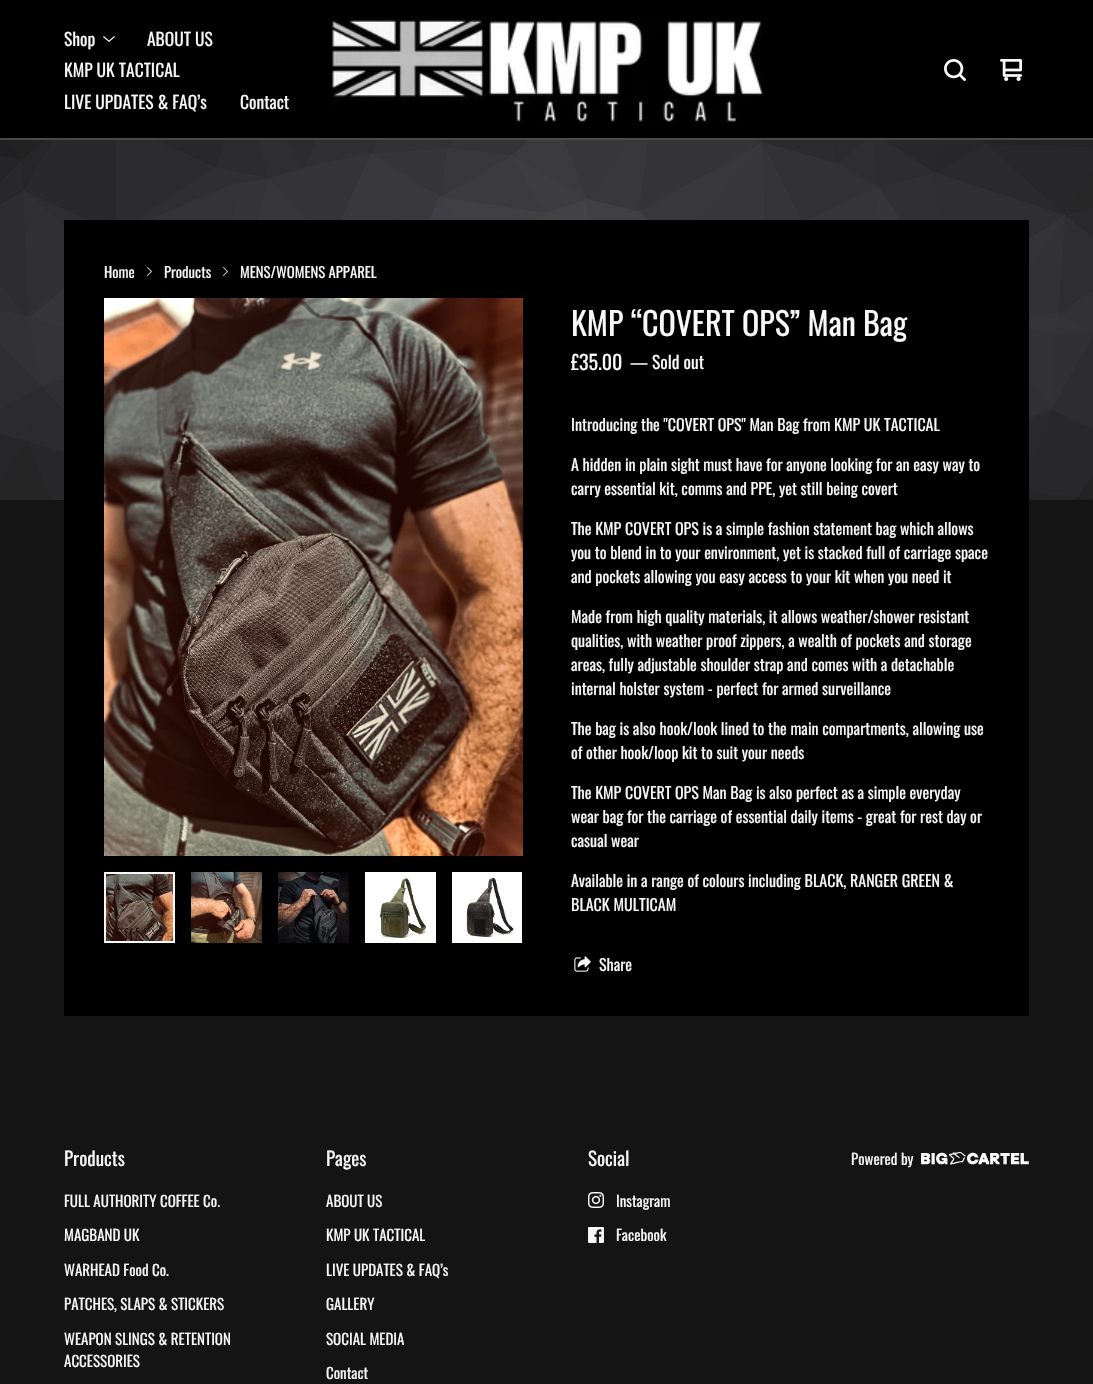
void draw(SkCanvas* canvas) {
	SkPaint paint;
	paint.setAntiAlias(true);
	canvas->clear(0xff141415);
	paint.setColor(0xff000000);
	canvas->drawRect(SkRect::MakeXYWH(0, 0, 1093, 138), paint);
	paint.setColor(0xff4a4a4a);
	canvas->drawRect(SkRect::MakeXYWH(0, 138, 1093, 2), paint);
	SkFont f1(fontMgr->matchFamilyStyle("Oswald", SkFontStyle::Normal()), 17.5);
	f1.setSubpixel(true);
	paint.setColor(0xfff8f8f8);
	canvas->drawString("Shop", 64, 46, f1, paint);
	canvas->drawImageRect(SkImages::DeferredFromEncodedData(SkData::MakeFromFileName("img1.png")), SkRect::MakeXYWH(103, 36, 12, 6), SkSamplingOptions());
	canvas->drawString("ABOUT US", 147, 46, f1, paint);
	canvas->drawString("KMP UK TACTICAL", 64, 77, f1, paint);
	canvas->drawString("LIVE UPDATES & FAQ’s", 64, 109, f1, paint);
	canvas->drawString("Contact", 240, 109, f1, paint);
	canvas->drawImageRect(SkImages::DeferredFromEncodedData(SkData::MakeFromFileName("img2.png")), SkRect::MakeXYWH(331, 16, 432, 108), SkSamplingOptions());
	canvas->drawImageRect(SkImages::DeferredFromEncodedData(SkData::MakeFromFileName("img3.png")), SkRect::MakeXYWH(944, 59, 22, 22), SkSamplingOptions());
	canvas->drawImageRect(SkImages::DeferredFromEncodedData(SkData::MakeFromFileName("img4.png")), SkRect::MakeXYWH(1000, 59, 22, 22), SkSamplingOptions());
	canvas->drawImageRect(SkImages::DeferredFromEncodedData(SkData::MakeFromFileName("img5.png")), SkRect::MakeXYWH(0, 140, 1093, 360), SkSamplingOptions());
	paint.setColor(0xff000000);
	canvas->drawRect(SkRect::MakeXYWH(64, 220, 965, 796), paint);
	SkFont f2(fontMgr->matchFamilyStyle("Oswald", SkFontStyle::Normal()), 14.75);
	f2.setSubpixel(true);
	paint.setColor(0xfff8f8f8);
	canvas->drawString("Home", 104, 278, f2, paint);
	canvas->drawImageRect(SkImages::DeferredFromEncodedData(SkData::MakeFromFileName("img6.png")), SkRect::MakeXYWH(147, 267, 5, 9), SkSamplingOptions());
	canvas->drawString("Products", 164, 278, f2, paint);
	canvas->drawImageRect(SkImages::DeferredFromEncodedData(SkData::MakeFromFileName("img6.png")), SkRect::MakeXYWH(223, 267, 5, 9), SkSamplingOptions());
	canvas->drawString("MENS/WOMENS APPAREL", 240, 278, f2, paint);
	canvas->drawImageRect(SkImages::DeferredFromEncodedData(SkData::MakeFromFileName("img7.png")), SkRect::MakeXYWH(104, 298, 419, 558), SkSamplingOptions());
	canvas->drawImageRect(SkImages::DeferredFromEncodedData(SkData::MakeFromFileName("img8.png")), SkRect::MakeXYWH(106, 874, 67, 67), SkSamplingOptions());
	paint.setStroke(true);
	paint.setStrokeWidth(2);
	canvas->drawRect(SkRect::MakeXYWH(105, 873, 69, 69), paint);
	canvas->drawImageRect(SkImages::DeferredFromEncodedData(SkData::MakeFromFileName("img9.png")), SkRect::MakeXYWH(191, 872, 71, 71), SkSamplingOptions());
	canvas->drawImageRect(SkImages::DeferredFromEncodedData(SkData::MakeFromFileName("img10.png")), SkRect::MakeXYWH(278, 872, 71, 71), SkSamplingOptions());
	canvas->drawImageRect(SkImages::DeferredFromEncodedData(SkData::MakeFromFileName("img11.png")), SkRect::MakeXYWH(365, 872, 71, 71), SkSamplingOptions());
	canvas->drawImageRect(SkImages::DeferredFromEncodedData(SkData::MakeFromFileName("img12.png")), SkRect::MakeXYWH(452, 872, 70, 71), SkSamplingOptions());
	SkFont f3(fontMgr->matchFamilyStyle("Oswald", SkFontStyle::Normal()), 32);
	f3.setSubpixel(true);
	paint.setStroke(false);
	canvas->drawString("KMP “COVERT OPS” Man Bag", 571, 336, f3, paint);
	SkFont f4(fontMgr->matchFamilyStyle("Oswald", SkFontStyle::Normal()), 20);
	f4.setSubpixel(true);
	canvas->drawString("£35.00", 571, 370, f4, paint);
	canvas->drawString("— Sold out", 630, 369, f1, paint);
	SkFont f5(fontMgr->matchFamilyStyle("Oswald", SkFontStyle::Normal()), 16);
	f5.setSubpixel(true);
	canvas->drawString("Introducing the \"COVERT OPS\" Man Bag from KMP UK TACTICAL", 571, 431, f5, paint);
	canvas->drawString("A hidden in plain sight must have for anyone looking for an easy way to", 571, 471, f5, paint);
	canvas->drawString("carry essential kit, comms and PPE, yet still being covert", 571, 495, f5, paint);
	canvas->drawString("The KMP COVERT OPS is a simple fashion statement bag which allows", 571, 535, f5, paint);
	canvas->drawString("you to blend in to your environment, yet is stacked full of carriage space", 571, 559, f5, paint);
	canvas->drawString("and pockets allowing you easy access to your kit when you need it", 571, 583, f5, paint);
	canvas->drawString("Made from high quality materials, it allows weather/shower resistant", 571, 623, f5, paint);
	canvas->drawString("qualities, with weather proof zippers, a wealth of pockets and storage", 571, 647, f5, paint);
	canvas->drawString("areas, fully adjustable shoulder strap and comes with a detachable", 571, 671, f5, paint);
	canvas->drawString("internal holster system - perfect for armed surveillance", 571, 695, f5, paint);
	canvas->drawString("The bag is also hook/look lined to the main compartments, allowing use", 571, 735, f5, paint);
	canvas->drawString("of other hook/loop kit to suit your needs", 571, 759, f5, paint);
	canvas->drawString("The KMP COVERT OPS Man Bag is also perfect as a simple everyday", 571, 799, f5, paint);
	canvas->drawString("wear bag for the carriage of essential daily items - great for rest day or", 571, 823, f5, paint);
	canvas->drawString("casual wear", 571, 847, f5, paint);
	canvas->drawString("Available in a range of colours including BLACK, RANGER GREEN &", 571, 887, f5, paint);
	canvas->drawString("BLACK MULTICAM", 571, 911, f5, paint);
	canvas->drawImageRect(SkImages::DeferredFromEncodedData(SkData::MakeFromFileName("img13.png")), SkRect::MakeXYWH(574, 956, 17, 16), SkSamplingOptions());
	canvas->drawString("Share", 599, 971, f5, paint);
	SkFont f6(fontMgr->matchFamilyStyle("Oswald", SkFontStyle::Normal()), 19);
	f6.setSubpixel(true);
	canvas->drawString("Products", 64, 1166, f6, paint);
	SkFont f7(fontMgr->matchFamilyStyle("Oswald", SkFontStyle::Normal()), 15);
	f7.setSubpixel(true);
	canvas->drawString("FULL AUTHORITY COFFEE Co.", 64, 1207, f7, paint);
	canvas->drawString("MAGBAND UK", 64, 1241, f7, paint);
	canvas->drawString("WARHEAD Food Co.", 64, 1276, f7, paint);
	canvas->drawString("PATCHES, SLAPS & STICKERS", 64, 1310, f7, paint);
	canvas->drawString("WEAPON SLINGS & RETENTION", 64, 1345, f7, paint);
	canvas->drawString("ACCESSORIES", 64, 1367, f7, paint);
	canvas->drawString("Pages", 326, 1166, f6, paint);
	canvas->drawString("ABOUT US", 326, 1207, f7, paint);
	canvas->drawString("KMP UK TACTICAL", 326, 1241, f7, paint);
	canvas->drawString("LIVE UPDATES & FAQ’s", 326, 1276, f7, paint);
	canvas->drawString("GALLERY", 326, 1310, f7, paint);
	canvas->drawString("SOCIAL MEDIA", 326, 1345, f7, paint);
	canvas->drawString("Contact", 326, 1379, f7, paint);
	canvas->drawString("Social", 588, 1166, f6, paint);
	canvas->drawImageRect(SkImages::DeferredFromEncodedData(SkData::MakeFromFileName("img14.png")), SkRect::MakeXYWH(588, 1192, 16, 16), SkSamplingOptions());
	canvas->drawString("Instagram", 616, 1207, f7, paint);
	canvas->drawImageRect(SkImages::DeferredFromEncodedData(SkData::MakeFromFileName("img15.png")), SkRect::MakeXYWH(588, 1227, 16, 16), SkSamplingOptions());
	canvas->drawString("Facebook", 616, 1241, f7, paint);
	canvas->drawString("Powered by", 851, 1165, f7, paint);
	canvas->drawImageRect(SkImages::DeferredFromEncodedData(SkData::MakeFromFileName("img16.png")), SkRect::MakeXYWH(921, 1152, 108, 13), SkSamplingOptions());
}
